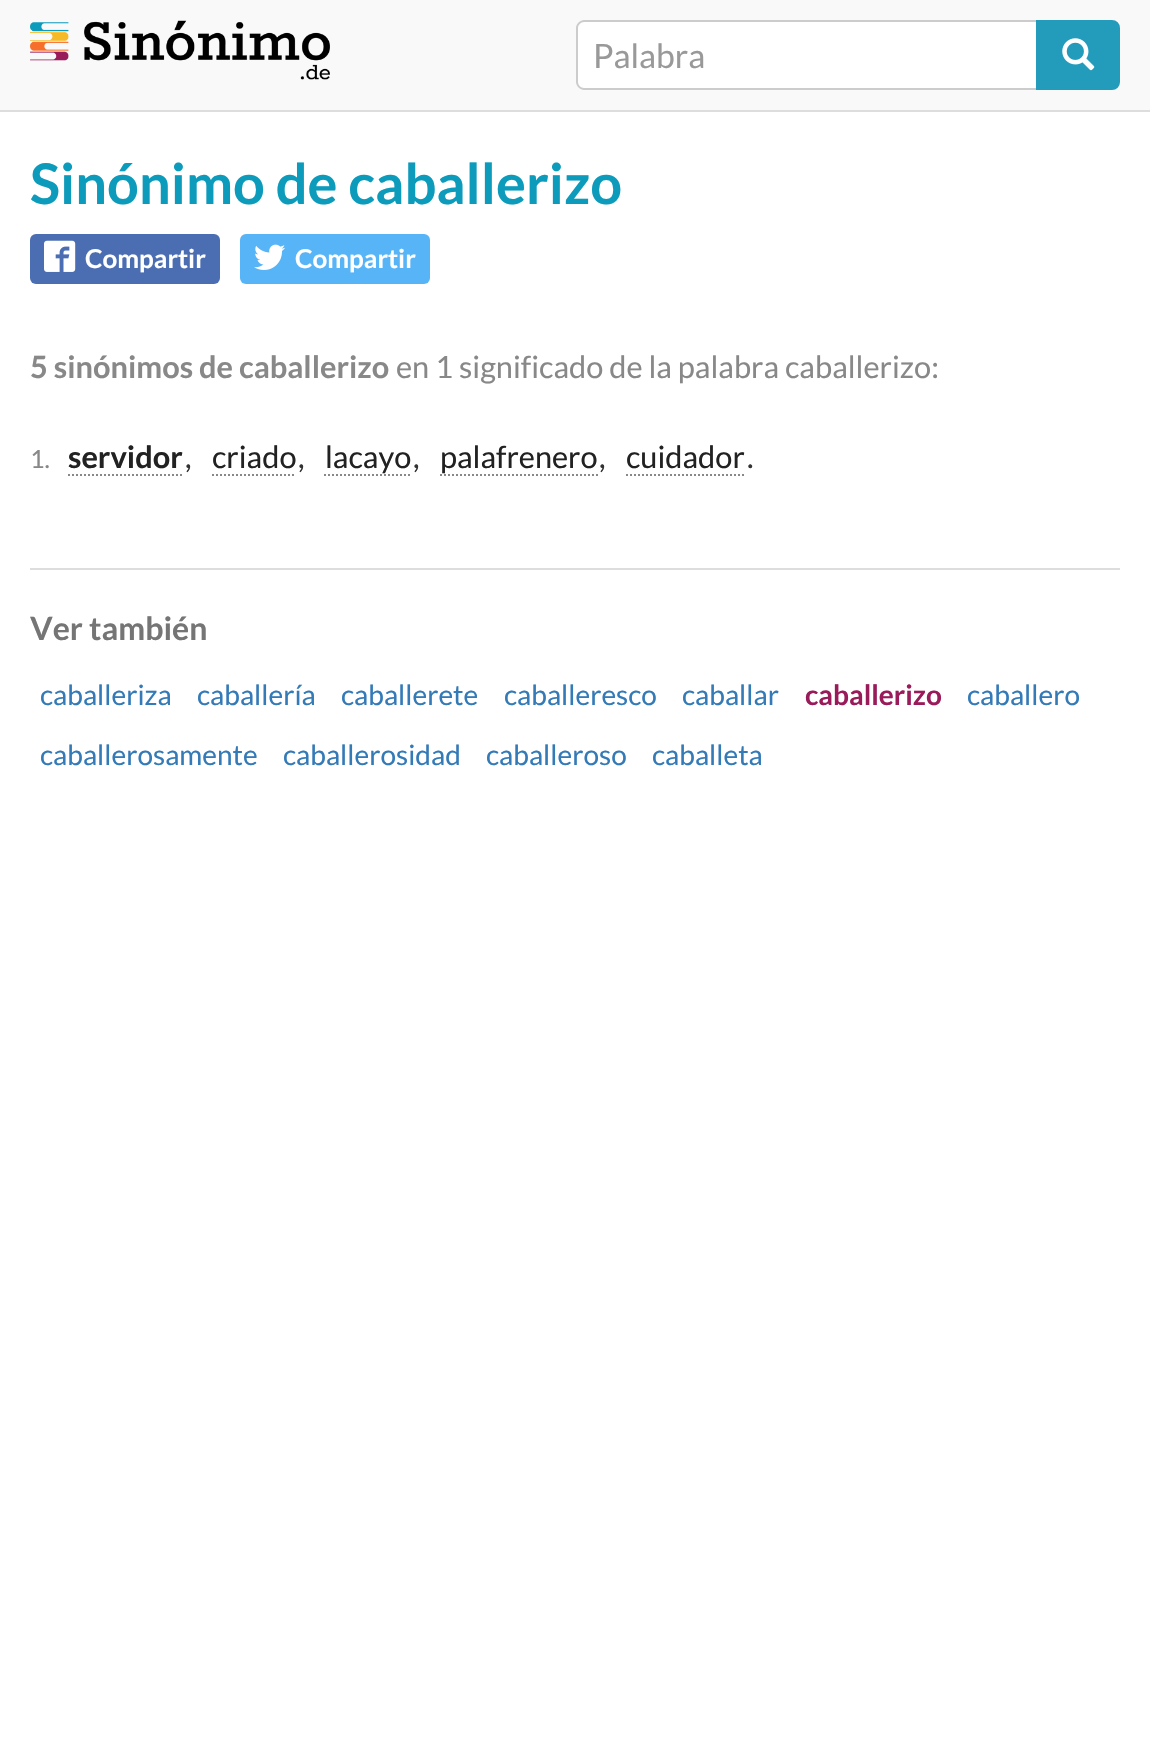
void draw(SkCanvas* canvas) {
	SkPaint paint;
	paint.setAntiAlias(true);
	auto svgPath = [&](const char* data, bool evenOdd = false) {
		SkPath result = *SkParsePath::FromSVGString(data);
		if (evenOdd) result.setFillType(SkPathFillType::kEvenOdd);
		return result;
	};
	canvas->clear(0xffffffff);
	paint.setColor(0xfff9f9f9);
	canvas->drawRect(SkRect::MakeXYWH(0, 0, 1150, 110), paint);
	paint.setColor(0xffdddddd);
	canvas->drawRect(SkRect::MakeXYWH(0, 110, 1150, 2), paint);
	canvas->drawImageRect(SkImages::DeferredFromEncodedData(SkData::MakeFromFileName("img1.png")), SkRect::MakeXYWH(30, 20, 300, 60), SkSamplingOptions());
	paint.setColor(0xffffffff);
	canvas->drawPath(svgPath("M584 20H1038V90H584C579.5 90 576 86.5 576 82V28C576 23.5 579.5 20 584 20Z"), paint);
	paint.setColor(0xffcccccc);
	canvas->drawPath(svgPath("M584 20H1038V90H584C580 90 576 86 576 82V28C576 24 580 20 584 20ZM584 22H1038V88H584C581 88 578 85 578 82V28C578 25 581 22 584 22Z", true), paint);
	SkFont f1(fontMgr->matchFamilyStyle("Lato", SkFontStyle::Normal()), 33.5);
	f1.setSubpixel(true);
	paint.setColor(0xff999999);
	canvas->drawString("Palabra", 593, 68, f1, paint);
	paint.setColor(0xff239bbb);
	canvas->drawPath(svgPath("M1037 21H1112C1116 21 1119 24 1119 28V82C1119 86 1116 89 1112 89H1037Z"), paint);
	paint.setStroke(true);
	paint.setStrokeWidth(2);
	canvas->drawPath(svgPath("M1037 21H1112C1116 21 1119 24 1119 28V82C1119 86 1116 89 1112 89H1037Z"), paint);
	canvas->drawImageRect(SkImages::DeferredFromEncodedData(SkData::MakeFromFileName("img2.png")), SkRect::MakeXYWH(1062, 38, 33, 33), SkSamplingOptions());
	SkFont f2(fontMgr->matchFamilyStyle("Lato", SkFontStyle::Bold()), 56);
	f2.setSubpixel(true);
	paint.setStroke(false);
	paint.setColor(0xff0d9bbc);
	canvas->drawString("Sinónimo de caballerizo", 30, 204, f2, paint);
	paint.setColor(0xff4b6db1);
	canvas->drawRoundRect(SkRect::MakeXYWH(30, 234, 190, 50), 6, 6, paint);
	canvas->drawImageRect(SkImages::DeferredFromEncodedData(SkData::MakeFromFileName("img3.png")), SkRect::MakeXYWH(44, 240, 32, 32), SkSamplingOptions());
	SkFont f3(fontMgr->matchFamilyStyle("Lato", SkFontStyle::Bold()), 26);
	f3.setSubpixel(true);
	paint.setColor(0xffffffff);
	canvas->drawString("Compartir", 85, 268, f3, paint);
	paint.setColor(0xff57b4f7);
	canvas->drawRoundRect(SkRect::MakeXYWH(240, 234, 190, 50), 6, 6, paint);
	canvas->drawImageRect(SkImages::DeferredFromEncodedData(SkData::MakeFromFileName("img4.png")), SkRect::MakeXYWH(254, 244, 31, 26), SkSamplingOptions());
	paint.setColor(0xffffffff);
	canvas->drawString("Compartir", 295, 268, f3, paint);
	SkFont f4(fontMgr->matchFamilyStyle("Lato", SkFontStyle::Bold()), 30.75);
	f4.setSubpixel(true);
	paint.setColor(0xff888888);
	canvas->drawString("5 sinónimos de caballerizo", 30, 378, f4, paint);
	SkFont f5(fontMgr->matchFamilyStyle("Lato", SkFontStyle::Normal()), 30.75);
	f5.setSubpixel(true);
	canvas->drawString("en 1 significado de la palabra caballerizo:", 396, 378, f5, paint);
	SkFont f6(fontMgr->matchFamilyStyle("Lato", SkFontStyle::Normal()), 25);
	f6.setSubpixel(true);
	canvas->drawString("1.", 30, 468, f6, paint);
	paint.setColor(0xff222222);
	canvas->drawString("servidor", 68, 468, f4, paint);
	paint.setStroke(true);
	paint.setColor(0xff888888);
	paint.setPathEffect(SkDashPathEffect::Make({{2, 2}}, 0));
	canvas->drawPath(svgPath("M68 475H184"), paint);
	paint.setPathEffect(nullptr);
	paint.setStroke(false);
	paint.setColor(0xff333333);
	canvas->drawString(",", 185, 468, f5, paint);
	paint.setColor(0xff222222);
	canvas->drawString("criado", 212, 468, f5, paint);
	paint.setStroke(true);
	paint.setColor(0xff888888);
	paint.setPathEffect(SkDashPathEffect::Make({{2, 2}}, 0));
	canvas->drawPath(svgPath("M212 475H296"), paint);
	paint.setPathEffect(nullptr);
	paint.setStroke(false);
	paint.setColor(0xff333333);
	canvas->drawString(",", 298, 468, f5, paint);
	paint.setColor(0xff222222);
	canvas->drawString("lacayo", 325, 468, f5, paint);
	paint.setStroke(true);
	paint.setColor(0xff888888);
	paint.setPathEffect(SkDashPathEffect::Make({{2, 2}}, 0));
	canvas->drawPath(svgPath("M324 475H412"), paint);
	paint.setPathEffect(nullptr);
	paint.setStroke(false);
	paint.setColor(0xff333333);
	canvas->drawString(",", 413, 468, f5, paint);
	paint.setColor(0xff222222);
	canvas->drawString("palafrenero", 440, 468, f5, paint);
	paint.setStroke(true);
	paint.setColor(0xff888888);
	paint.setPathEffect(SkDashPathEffect::Make({{2, 2}}, 0));
	canvas->drawPath(svgPath("M440 475H598"), paint);
	paint.setPathEffect(nullptr);
	paint.setStroke(false);
	paint.setColor(0xff333333);
	canvas->drawString(",", 599, 468, f5, paint);
	paint.setColor(0xff222222);
	canvas->drawString("cuidador", 626, 468, f5, paint);
	paint.setStroke(true);
	paint.setColor(0xff888888);
	paint.setPathEffect(SkDashPathEffect::Make({{2, 2}}, 0));
	canvas->drawPath(svgPath("M626 475H744"), paint);
	paint.setPathEffect(nullptr);
	paint.setStroke(false);
	paint.setColor(0xff333333);
	canvas->drawString(".", 747, 468, f5, paint);
	paint.setColor(0xffdddddd);
	canvas->drawRect(SkRect::MakeXYWH(30, 568, 1090, 2), paint);
	SkFont f7(fontMgr->matchFamilyStyle("Lato", SkFontStyle::Bold()), 32);
	f7.setSubpixel(true);
	paint.setColor(0xff757575);
	canvas->drawString("Ver también", 30, 640, f7, paint);
	SkFont f8(fontMgr->matchFamilyStyle("Lato", SkFontStyle::Normal()), 28);
	f8.setSubpixel(true);
	paint.setColor(0xff337ab7);
	canvas->drawString("caballeriza", 40, 705, f8, paint);
	canvas->drawString("caballería", 197, 705, f8, paint);
	canvas->drawString("caballerete", 341, 705, f8, paint);
	canvas->drawString("caballeresco", 504, 705, f8, paint);
	canvas->drawString("caballar", 682, 705, f8, paint);
	SkFont f9(fontMgr->matchFamilyStyle("Lato", SkFontStyle::Bold()), 28);
	f9.setSubpixel(true);
	paint.setColor(0xff991b5a);
	canvas->drawString("caballerizo", 805, 705, f9, paint);
	paint.setColor(0xff337ab7);
	canvas->drawString("caballero", 967, 705, f8, paint);
	canvas->drawString("caballerosamente", 40, 765, f8, paint);
	canvas->drawString("caballerosidad", 283, 765, f8, paint);
	canvas->drawString("caballeroso", 486, 765, f8, paint);
	canvas->drawString("caballeta", 652, 765, f8, paint);
}
